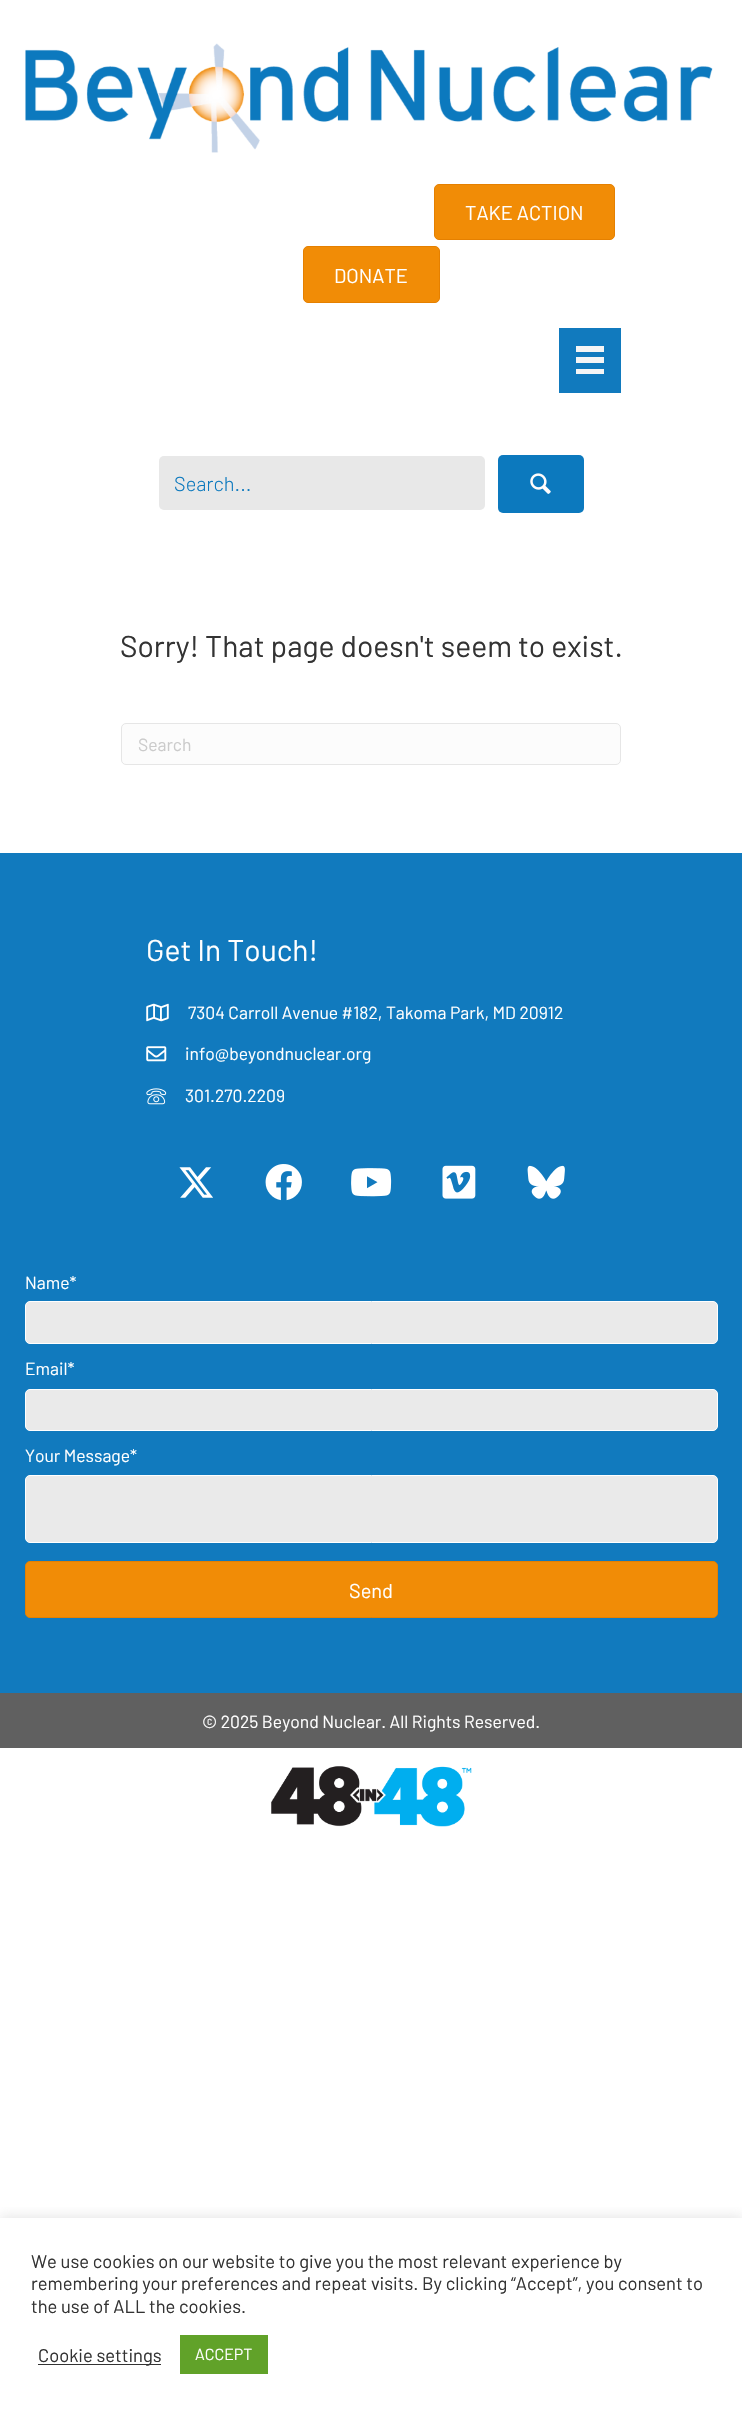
void draw(SkCanvas* canvas) {
	SkPaint paint;
	paint.setAntiAlias(true);
	canvas->clear(0xffffffff);
	canvas->drawImageRect(SkImages::DeferredFromEncodedData(SkData::MakeFromFileName("img1.png")), SkRect::MakeXYWH(25, 43, 688, 110), SkSamplingOptions());
	paint.setColor(0xfff18c06);
	canvas->drawRoundRect(SkRect::MakeXYWH(434.5, 184.5, 180, 55), 4.5, 4.5, paint);
	paint.setStroke(true);
	paint.setStrokeWidth(1);
	paint.setColor(0xffe58000);
	canvas->drawRoundRect(SkRect::MakeXYWH(434.5, 184.5, 180, 55), 4.5, 4.5, paint);
	SkFont f1(fontMgr->matchFamilyStyle("Barlow", SkFontStyle::Normal()), 20);
	f1.setSubpixel(true);
	paint.setStroke(false);
	paint.setColor(0xffffffff);
	canvas->drawString("TAKE ACTION", 465, 220, f1, paint);
	paint.setColor(0xfff18c06);
	canvas->drawRoundRect(SkRect::MakeXYWH(303.5, 246.5, 136, 56), 4.5, 4.5, paint);
	paint.setStroke(true);
	paint.setColor(0xffe58000);
	canvas->drawRoundRect(SkRect::MakeXYWH(303.5, 246.5, 136, 56), 4.5, 4.5, paint);
	paint.setStroke(false);
	paint.setColor(0xffffffff);
	canvas->drawString("DONATE", 334, 283, f1, paint);
	paint.setColor(0xff117abe);
	canvas->drawRect(SkRect::MakeXYWH(559, 328, 62, 65), paint);
	paint.setColor(0xfff5f5f5);
	canvas->drawRect(SkRect::MakeXYWH(576, 346, 28, 6), paint);
	canvas->drawRect(SkRect::MakeXYWH(576, 357, 28, 6), paint);
	canvas->drawRect(SkRect::MakeXYWH(576, 369, 28, 5), paint);
	paint.setColor(0xffe8e8e8);
	canvas->drawRoundRect(SkRect::MakeXYWH(159, 456, 326, 54), 5, 5, paint);
	SkFont f2(fontMgr->matchFamilyStyle("Barlow", SkFontStyle(300, SkFontStyle::kNormal_Width, SkFontStyle::kUpright_Slant)), 20);
	f2.setSubpixel(true);
	paint.setColor(0xff0c79be);
	canvas->drawString("Search...", 174, 491, f2, paint);
	canvas->drawRoundRect(SkRect::MakeXYWH(498, 455, 86, 58), 5, 5, paint);
	canvas->drawImageRect(SkImages::DeferredFromEncodedData(SkData::MakeFromFileName("img2.png")), SkRect::MakeXYWH(530, 473, 21, 21), SkSamplingOptions());
	SkFont f3(fontMgr->matchFamilyStyle("Barlow", SkFontStyle::Normal()), 30);
	f3.setSubpixel(true);
	paint.setColor(0xff333333);
	canvas->drawString("Sorry! That page doesn't seem to exist.", 120, 657, f3, paint);
	paint.setColor(0xfffcfcfc);
	canvas->drawRoundRect(SkRect::MakeXYWH(121.5, 723.5, 499, 41), 4.5, 4.5, paint);
	paint.setStroke(true);
	paint.setColor(0xffe6e6e6);
	canvas->drawRoundRect(SkRect::MakeXYWH(121.5, 723.5, 499, 41), 4.5, 4.5, paint);
	SkFont f4(fontMgr->matchFamilyStyle("Barlow", SkFontStyle::Normal()), 17.5);
	f4.setSubpixel(true);
	paint.setStroke(false);
	paint.setColor(0xffcbcbcb);
	canvas->drawString("Search", 138, 751, f4, paint);
	paint.setColor(0xff117abe);
	canvas->drawRect(SkRect::MakeXYWH(0, 853, 742, 840), paint);
	paint.setColor(0xffffffff);
	canvas->drawString("Get In Touch!", 146, 961, f3, paint);
	canvas->drawImageRect(SkImages::DeferredFromEncodedData(SkData::MakeFromFileName("img3.png")), SkRect::MakeXYWH(146, 1003, 23, 19), SkSamplingOptions());
	canvas->drawString("7304 Carroll Avenue #182, Takoma Park, MD 20912", 188, 1019, f4, paint);
	canvas->drawImageRect(SkImages::DeferredFromEncodedData(SkData::MakeFromFileName("img4.png")), SkRect::MakeXYWH(146, 1046, 21, 16), SkSamplingOptions());
	canvas->drawString("info@beyondnuclear.org", 185, 1060, f4, paint);
	canvas->drawImageRect(SkImages::DeferredFromEncodedData(SkData::MakeFromFileName("img5.png")), SkRect::MakeXYWH(146, 1088, 21, 17), SkSamplingOptions());
	canvas->drawString("301.270.2209", 185, 1102, f4, paint);
	canvas->drawImageRect(SkImages::DeferredFromEncodedData(SkData::MakeFromFileName("img6.png")), SkRect::MakeXYWH(179, 1167, 34, 31), SkSamplingOptions());
	canvas->drawImageRect(SkImages::DeferredFromEncodedData(SkData::MakeFromFileName("img7.png")), SkRect::MakeXYWH(265, 1164, 37, 37), SkSamplingOptions());
	canvas->drawImageRect(SkImages::DeferredFromEncodedData(SkData::MakeFromFileName("img8.png")), SkRect::MakeXYWH(351, 1168, 41, 29), SkSamplingOptions());
	canvas->drawImageRect(SkImages::DeferredFromEncodedData(SkData::MakeFromFileName("img9.png")), SkRect::MakeXYWH(442, 1165, 34, 34), SkSamplingOptions());
	canvas->drawImageRect(SkImages::DeferredFromEncodedData(SkData::MakeFromFileName("img10.png")), SkRect::MakeXYWH(527, 1165, 38, 34), SkSamplingOptions());
	canvas->drawString("Name*", 25, 1289, f4, paint);
	paint.setColor(0xffeaeaea);
	canvas->drawRoundRect(SkRect::MakeXYWH(25.5, 1301.5, 692, 42), 4.5, 4.5, paint);
	paint.setStroke(true);
	paint.setColor(0xffffffff);
	canvas->drawRoundRect(SkRect::MakeXYWH(25.5, 1301.5, 692, 42), 4.5, 4.5, paint);
	paint.setStroke(false);
	canvas->drawString("Email*", 25, 1375, f4, paint);
	paint.setColor(0xffeaeaea);
	canvas->drawRoundRect(SkRect::MakeXYWH(25.5, 1389.5, 692, 41), 4.5, 4.5, paint);
	paint.setStroke(true);
	paint.setColor(0xffffffff);
	canvas->drawRoundRect(SkRect::MakeXYWH(25.5, 1389.5, 692, 41), 4.5, 4.5, paint);
	paint.setStroke(false);
	canvas->drawString("Your Message*", 25, 1462, f4, paint);
	paint.setColor(0xffeaeaea);
	canvas->drawRoundRect(SkRect::MakeXYWH(25.5, 1475.5, 692, 67), 4.5, 4.5, paint);
	paint.setStroke(true);
	paint.setColor(0xffffffff);
	canvas->drawRoundRect(SkRect::MakeXYWH(25.5, 1475.5, 692, 67), 4.5, 4.5, paint);
	paint.setStroke(false);
	paint.setColor(0xfff18c06);
	canvas->drawRoundRect(SkRect::MakeXYWH(25.5, 1561.5, 692, 56), 4.5, 4.5, paint);
	paint.setStroke(true);
	paint.setColor(0xffe58000);
	canvas->drawRoundRect(SkRect::MakeXYWH(25.5, 1561.5, 692, 56), 4.5, 4.5, paint);
	paint.setStroke(false);
	paint.setColor(0xffffffff);
	canvas->drawString("Send", 349, 1598, f1, paint);
	paint.setColor(0xff606060);
	canvas->drawRect(SkRect::MakeXYWH(0, 1693, 742, 55), paint);
	paint.setColor(0xffffffff);
	canvas->drawString("© 2025 Beyond Nuclear. All Rights Reserved.", 202, 1728, f4, paint);
	canvas->drawImageRect(SkImages::DeferredFromEncodedData(SkData::MakeFromFileName("img11.png")), SkRect::MakeXYWH(271, 1766, 201, 61), SkSamplingOptions());
	canvas->save();
	canvas->clipRect(SkRect::MakeXYWH(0, 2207, 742, 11));
	paint.setColor(0x4dacabab);
	paint.setMaskFilter(SkMaskFilter::MakeBlur(kNormal_SkBlurStyle, 6));
	canvas->drawRect(SkRect::MakeXYWH(0, 2216, 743, 194), paint);
	paint.setMaskFilter(nullptr);
	canvas->restore();
	SkFont f5(fontMgr->matchFamilyStyle("Barlow", SkFontStyle::Normal()), 18.35);
	f5.setSubpixel(true);
	paint.setColor(0xff333333);
	canvas->drawString("We use cookies on our website to give you the most relevant experience by", 31, 2268, f5, paint);
	canvas->drawString("remembering your preferences and repeat visits. By clicking “Accept”, you consent to", 31, 2290, f5, paint);
	canvas->drawString("the use of ALL the cookies.", 31, 2313, f5, paint);
	canvas->drawRect(SkRect::MakeXYWH(38, 2364, 123, 1), paint);
	canvas->drawString("Cookie settings", 38, 2362, f5, paint);
	paint.setColor(0xff61a229);
	canvas->drawRect(SkRect::MakeXYWH(180, 2335, 88, 39), paint);
	SkFont f6(fontMgr->matchFamilyStyle("Barlow", SkFontStyle::Normal()), 16);
	f6.setSubpixel(true);
	paint.setColor(0xffffffff);
	canvas->drawString("ACCEPT", 195, 2360, f6, paint);
}
